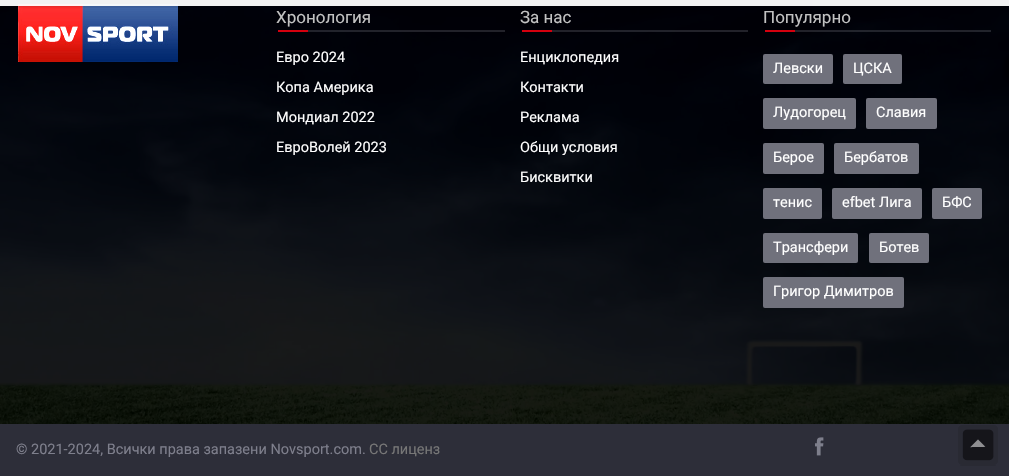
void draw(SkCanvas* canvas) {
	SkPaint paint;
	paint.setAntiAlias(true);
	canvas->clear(0xffffffff);
	canvas->drawImageRect(SkImages::DeferredFromEncodedData(SkData::MakeFromFileName("img1.png")), SkRect::MakeXYWH(0, 0, 1009, 424), SkSamplingOptions());
	canvas->drawImageRect(SkImages::DeferredFromEncodedData(SkData::MakeFromFileName("img2.png")), SkRect::MakeXYWH(18, 4, 160, 58), SkSamplingOptions());
	canvas->save();
	canvas->clipRect(SkRect::MakeXYWH(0, 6, 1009, 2));
	paint.setColor(0x1f000000);
	paint.setMaskFilter(SkMaskFilter::MakeBlur(kNormal_SkBlurStyle, 1.5));
	canvas->drawRect(SkRect::MakeXYWH(0, -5, 1009, 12), paint);
	paint.setMaskFilter(nullptr);
	canvas->restore();
	paint.setColor(0xf2ffffff);
	canvas->drawRect(SkRect::MakeXYWH(0, 0, 1009, 6), paint);
	SkFont f1(fontMgr->matchFamilyStyle("Roboto", SkFontStyle::Normal()), 17);
	f1.setSubpixel(true);
	paint.setColor(0xffc2c2c2);
	canvas->drawString("Хронология", 276, 23, f1, paint);
	paint.setColor(0xffd4000e);
	canvas->drawRect(SkRect::MakeXYWH(278, 30, 30, 2), paint);
	paint.setColor(0x4d70717c);
	canvas->drawRect(SkRect::MakeXYWH(308, 30, 197, 2), paint);
	SkFont f2(fontMgr->matchFamilyStyle("Roboto", SkFontStyle::Normal()), 14.5);
	f2.setSubpixel(true);
	paint.setColor(0xffffffff);
	canvas->drawString("Евро 2024", 276, 62, f2, paint);
	canvas->drawString("Копа Америка", 276, 92, f2, paint);
	canvas->drawString("Мондиал 2022", 276, 122, f2, paint);
	canvas->drawString("ЕвроВолей 2023", 276, 152, f2, paint);
	paint.setColor(0xffc2c2c2);
	canvas->drawString("За нас", 520, 23, f1, paint);
	paint.setColor(0xffd4000e);
	canvas->drawRect(SkRect::MakeXYWH(522, 30, 30, 2), paint);
	paint.setColor(0x4d70717c);
	canvas->drawRect(SkRect::MakeXYWH(552, 30, 196, 2), paint);
	paint.setColor(0xffffffff);
	canvas->drawString("Енциклопедия", 520, 62, f2, paint);
	canvas->drawString("Контакти", 520, 92, f2, paint);
	canvas->drawString("Реклама", 520, 122, f2, paint);
	canvas->drawString("Общи условия", 520, 152, f2, paint);
	canvas->drawString("Бисквитки", 520, 182, f2, paint);
	paint.setColor(0xffc2c2c2);
	canvas->drawString("Популярно", 763, 23, f1, paint);
	paint.setColor(0xffd4000e);
	canvas->drawRect(SkRect::MakeXYWH(765, 30, 30, 2), paint);
	paint.setColor(0x4d70717c);
	canvas->drawRect(SkRect::MakeXYWH(795, 30, 196, 2), paint);
	paint.setColor(0xff70717c);
	canvas->drawRoundRect(SkRect::MakeXYWH(763, 54, 70, 30), 2, 2, paint);
	paint.setColor(0xffffffff);
	canvas->drawString("Левски", 773, 73, f2, paint);
	paint.setColor(0xff70717c);
	canvas->drawRoundRect(SkRect::MakeXYWH(843, 54, 59, 30), 2, 2, paint);
	paint.setColor(0xffffffff);
	canvas->drawString("ЦСКА", 853, 73, f2, paint);
	paint.setColor(0xff70717c);
	canvas->drawRoundRect(SkRect::MakeXYWH(763, 98, 93, 31), 2, 2, paint);
	paint.setColor(0xffffffff);
	canvas->drawString("Лудогорец", 773, 117, f2, paint);
	paint.setColor(0xff70717c);
	canvas->drawRoundRect(SkRect::MakeXYWH(866, 98, 71, 31), 2, 2, paint);
	paint.setColor(0xffffffff);
	canvas->drawString("Славия", 876, 117, f2, paint);
	paint.setColor(0xff70717c);
	canvas->drawRoundRect(SkRect::MakeXYWH(763, 143, 61, 31), 2, 2, paint);
	paint.setColor(0xffffffff);
	canvas->drawString("Берое", 773, 162, f2, paint);
	paint.setColor(0xff70717c);
	canvas->drawRoundRect(SkRect::MakeXYWH(834, 143, 85, 31), 2, 2, paint);
	paint.setColor(0xffffffff);
	canvas->drawString("Бербатов", 844, 162, f2, paint);
	paint.setColor(0xff70717c);
	canvas->drawRoundRect(SkRect::MakeXYWH(763, 188, 59, 31), 2, 2, paint);
	paint.setColor(0xffffffff);
	canvas->drawString("тенис", 773, 207, f2, paint);
	paint.setColor(0xff70717c);
	canvas->drawRoundRect(SkRect::MakeXYWH(832, 188, 90, 31), 2, 2, paint);
	paint.setColor(0xffffffff);
	canvas->drawString("efbet Лига", 842, 207, f2, paint);
	paint.setColor(0xff70717c);
	canvas->drawRoundRect(SkRect::MakeXYWH(932, 188, 50, 31), 2, 2, paint);
	paint.setColor(0xffffffff);
	canvas->drawString("БФС", 942, 207, f2, paint);
	paint.setColor(0xff70717c);
	canvas->drawRoundRect(SkRect::MakeXYWH(763, 233, 95, 30), 2, 2, paint);
	paint.setColor(0xffffffff);
	canvas->drawString("Трансфери", 773, 252, f2, paint);
	paint.setColor(0xff70717c);
	canvas->drawRoundRect(SkRect::MakeXYWH(869, 233, 60, 30), 2, 2, paint);
	paint.setColor(0xffffffff);
	canvas->drawString("Ботев", 879, 252, f2, paint);
	paint.setColor(0xff70717c);
	canvas->drawRoundRect(SkRect::MakeXYWH(763, 277, 141, 31), 2, 2, paint);
	paint.setColor(0xffffffff);
	canvas->drawString("Григор Димитров", 773, 296, f2, paint);
	paint.setColor(0xff2d2e39);
	canvas->drawRect(SkRect::MakeXYWH(0, 424, 1009, 52), paint);
	paint.setColor(0xff7e7f8c);
	canvas->drawString("© 2021-2024, Всички права запазени Novsport.com.", 16, 454, f2, paint);
	paint.setColor(0xff777777);
	canvas->drawString("CC лиценз", 369, 454, f2, paint);
	canvas->drawImageRect(SkImages::DeferredFromEncodedData(SkData::MakeFromFileName("img3.png")), SkRect::MakeXYWH(815, 437, 9, 19), SkSamplingOptions());
	canvas->drawImageRect(SkImages::DeferredFromEncodedData(SkData::MakeFromFileName("img4.png")), SkRect::MakeXYWH(958, 425, 40, 41), SkSamplingOptions());
}
